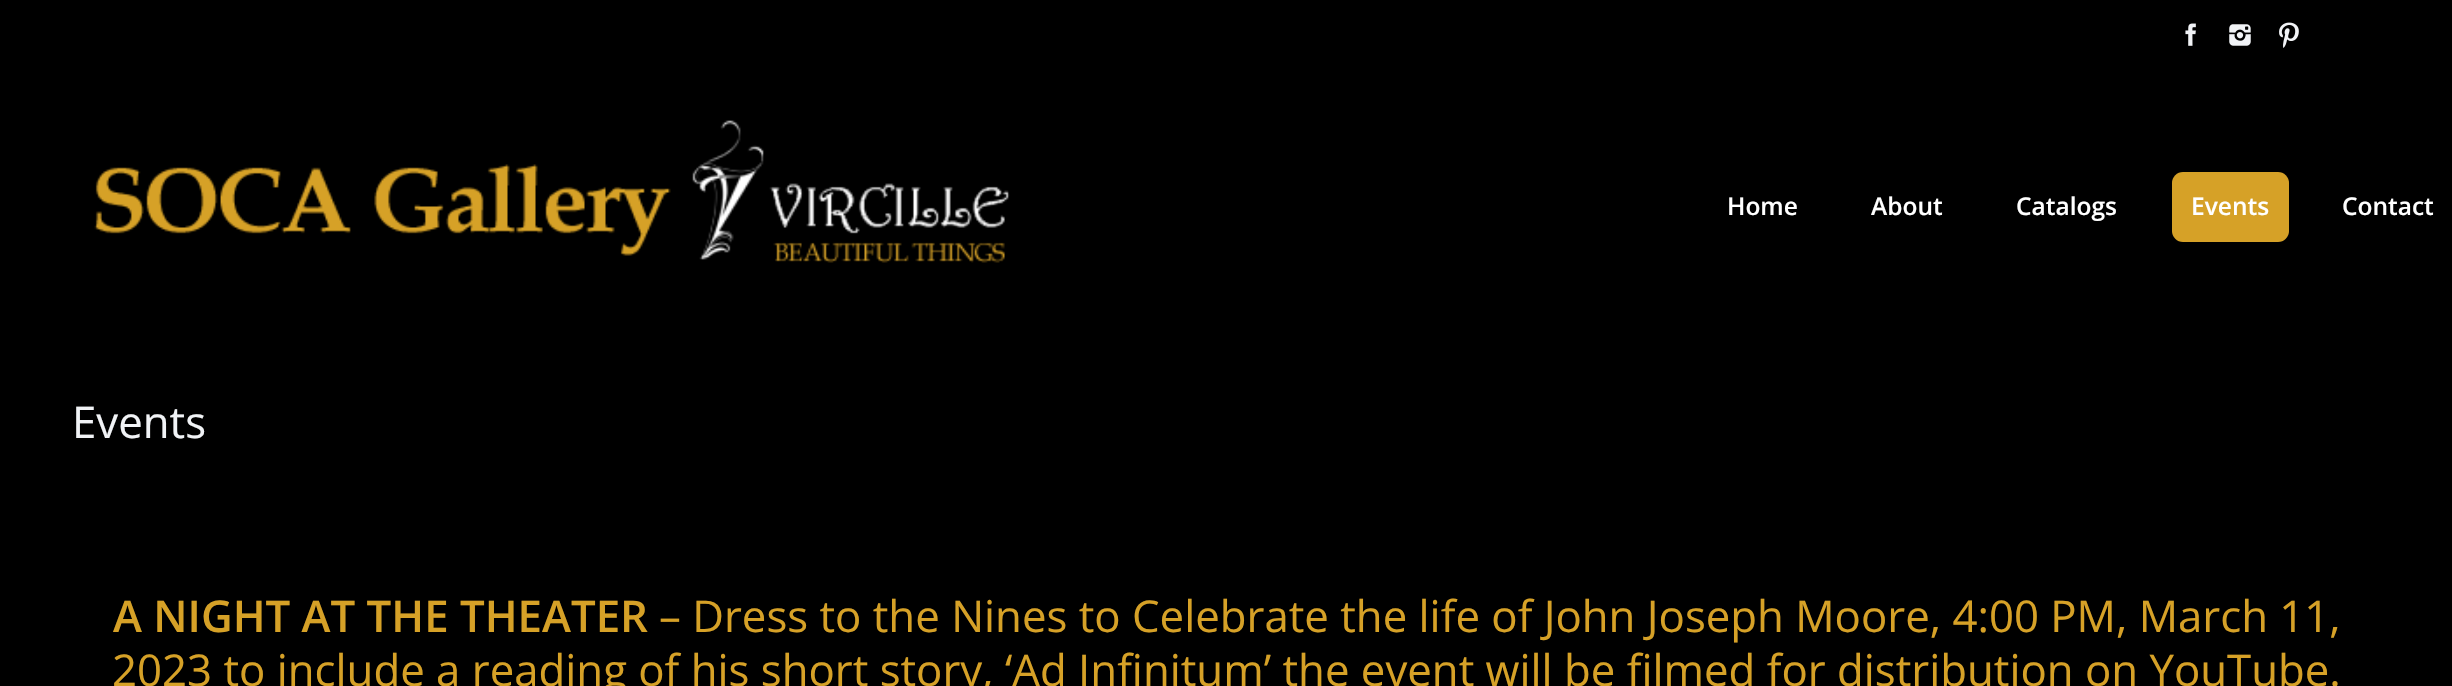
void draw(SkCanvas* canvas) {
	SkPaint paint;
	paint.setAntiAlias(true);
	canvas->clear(0xff000000);
	canvas->drawImageRect(SkImages::DeferredFromEncodedData(SkData::MakeFromFileName("img1.png")), SkRect::MakeXYWH(2185, 23, 11, 23), SkSamplingOptions());
	canvas->drawImageRect(SkImages::DeferredFromEncodedData(SkData::MakeFromFileName("img2.png")), SkRect::MakeXYWH(2229, 24, 22, 22), SkSamplingOptions());
	canvas->drawImageRect(SkImages::DeferredFromEncodedData(SkData::MakeFromFileName("img3.png")), SkRect::MakeXYWH(2279, 22, 20, 26), SkSamplingOptions());
	canvas->drawImageRect(SkImages::DeferredFromEncodedData(SkData::MakeFromFileName("img4.png")), SkRect::MakeXYWH(94, 120, 916, 143), SkSamplingOptions());
	SkFont f1(fontMgr->matchFamilyStyle("Open Sans", SkFontStyle(600, SkFontStyle::kNormal_Width, SkFontStyle::kUpright_Slant)), 24.5);
	f1.setSubpixel(true);
	paint.setColor(0xffffffff);
	canvas->drawString("Home", 1727, 215, f1, paint);
	canvas->drawString("About", 1871, 215, f1, paint);
	canvas->drawString("Catalogs", 2016, 215, f1, paint);
	paint.setColor(0xffd6a127);
	canvas->drawRoundRect(SkRect::MakeXYWH(2172, 172, 117, 70), 11, 11, paint);
	paint.setColor(0xffffffff);
	canvas->drawString("Events", 2191, 215, f1, paint);
	canvas->drawString("Contact", 2342, 215, f1, paint);
	SkFont f2(fontMgr->matchFamilyStyle("Open Sans", SkFontStyle::Normal()), 43.75);
	f2.setSubpixel(true);
	paint.setColor(0xfff1f3f6);
	canvas->drawString("Events", 72, 438, f2, paint);
	SkFont f3(fontMgr->matchFamilyStyle("Open Sans", SkFontStyle(600, SkFontStyle::kNormal_Width, SkFontStyle::kUpright_Slant)), 43.75);
	f3.setSubpixel(true);
	paint.setColor(0xffd6a127);
	canvas->drawString("A NIGHT AT THE THEATER", 113, 632, f3, paint);
	canvas->drawString("– Dress to the Nines to Celebrate the life of John Joseph Moore, 4:00 PM, March 11,", 659, 632, f2, paint);
	canvas->drawString("2023 to include a reading of his short story, ‘Ad Infinitum’ the event will be filmed for distribution on YouTube.", 112, 686, f2, paint);
}
